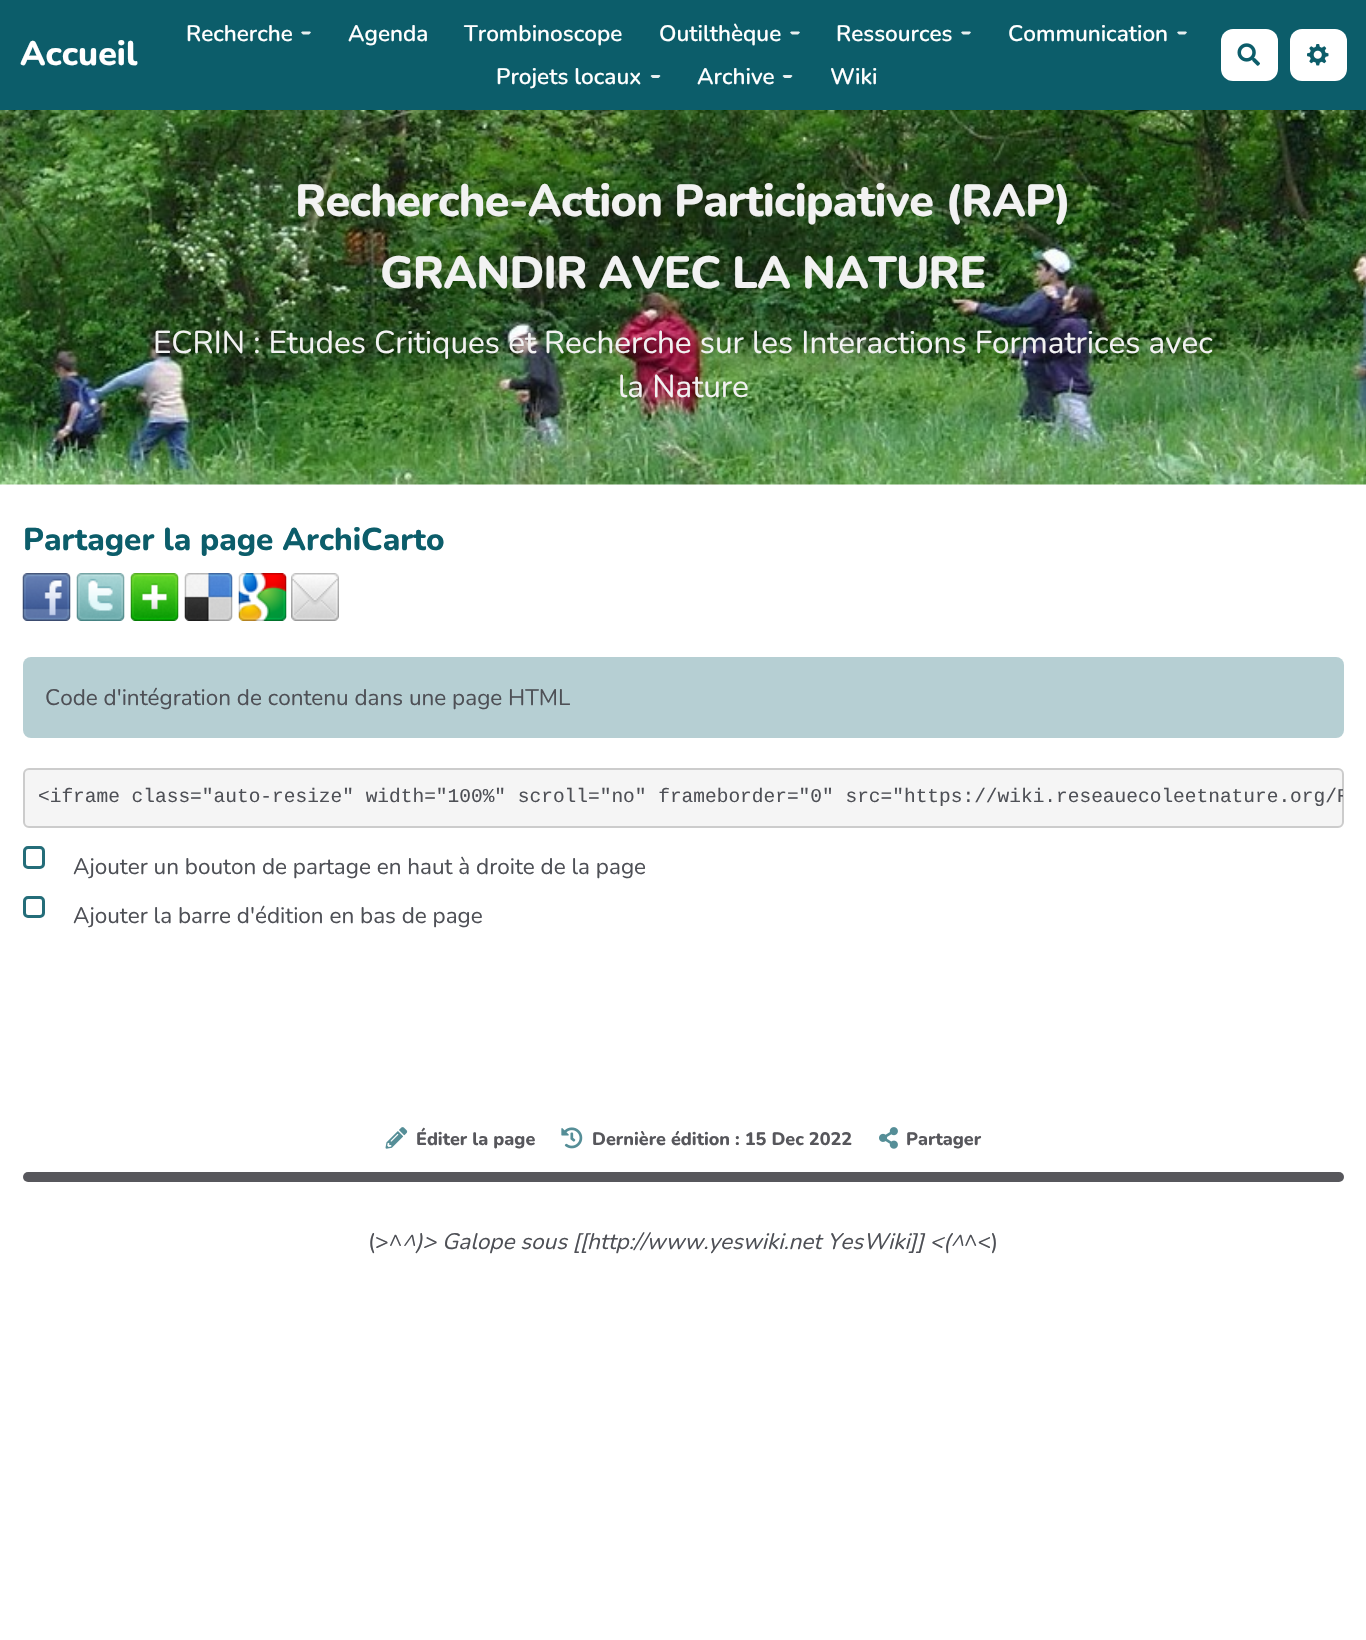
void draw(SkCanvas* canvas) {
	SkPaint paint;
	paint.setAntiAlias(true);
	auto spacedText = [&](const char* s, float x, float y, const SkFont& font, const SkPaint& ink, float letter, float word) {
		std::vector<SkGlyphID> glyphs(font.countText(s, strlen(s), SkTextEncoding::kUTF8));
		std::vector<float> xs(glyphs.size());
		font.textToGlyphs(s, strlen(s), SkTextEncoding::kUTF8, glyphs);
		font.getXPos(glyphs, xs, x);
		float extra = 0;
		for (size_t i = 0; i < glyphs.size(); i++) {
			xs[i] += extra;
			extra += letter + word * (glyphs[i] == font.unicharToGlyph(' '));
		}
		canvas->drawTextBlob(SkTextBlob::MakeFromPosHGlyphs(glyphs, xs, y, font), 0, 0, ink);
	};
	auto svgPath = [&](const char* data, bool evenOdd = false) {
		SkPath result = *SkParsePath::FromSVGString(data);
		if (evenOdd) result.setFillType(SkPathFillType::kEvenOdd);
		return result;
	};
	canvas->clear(0xffffffff);
	paint.setColor(0xff0c5d6a);
	canvas->drawRect(SkRect::MakeXYWH(0, 0, 1366, 110), paint);
	SkFont f1(fontMgr->matchFamilyStyle("Nunito", SkFontStyle(800, SkFontStyle::kNormal_Width, SkFontStyle::kUpright_Slant)), 34);
	f1.setSubpixel(true);
	paint.setColor(0xffffffff);
	canvas->drawString("Accueil", 20, 65, f1, paint);
	SkFont f2(fontMgr->matchFamilyStyle("Nunito", SkFontStyle(600, SkFontStyle::kNormal_Width, SkFontStyle::kUpright_Slant)), 22.5);
	f2.setSubpixel(true);
	canvas->drawString("Recherche", 186, 41, f2, paint);
	paint.setColor(0xffe7eff0);
	canvas->drawPath(svgPath("M303 31.5C302 31.5 301.5 32 301 32.5L303 34.5H309L311 32.5L310 31.5Z"), paint);
	paint.setColor(0xffffffff);
	canvas->drawString("Agenda", 348, 41, f2, paint);
	canvas->drawString("Trombinoscope", 464, 41, f2, paint);
	canvas->drawString("Outilthèque", 659, 41, f2, paint);
	paint.setColor(0xffe7eff0);
	canvas->drawPath(svgPath("M792 31.5C791 31.5 790.5 32 790 32.5L792 34.5H798L800 32.5L799 31.5Z"), paint);
	paint.setColor(0xffffffff);
	canvas->drawString("Ressources", 836, 41, f2, paint);
	paint.setColor(0xffe7eff0);
	canvas->drawPath(svgPath("M963 31.5C962 31.5 961.5 32 961 32.5L963 34.5H969L971 32.5L970 31.5Z"), paint);
	paint.setColor(0xffffffff);
	canvas->drawString("Communication", 1008, 41, f2, paint);
	paint.setColor(0xffe7eff0);
	canvas->drawPath(svgPath("M1179 31.5C1178 31.5 1177.5 32 1177 32.5L1179 34.5H1185L1187 32.5L1186 31.5Z"), paint);
	paint.setColor(0xffffffff);
	canvas->drawString("Projets locaux", 496, 84, f2, paint);
	paint.setColor(0xffe7eff0);
	canvas->drawPath(svgPath("M652.5 75C651.5 75 651 75.5 650.5 76L652.5 78H658.5L660.5 76L659.5 75Z"), paint);
	paint.setColor(0xffffffff);
	canvas->drawString("Archive", 697, 84, f2, paint);
	paint.setColor(0xffe7eff0);
	canvas->drawPath(svgPath("M784.5 75C783.5 75 783 75.5 782.5 76L784.5 78H790.5L792.5 76L791.5 75Z"), paint);
	paint.setColor(0xffffffff);
	canvas->drawString("Wiki", 830, 84, f2, paint);
	canvas->drawRoundRect(SkRect::MakeXYWH(1221, 29, 57, 52), 12, 12, paint);
	canvas->drawImageRect(SkImages::DeferredFromEncodedData(SkData::MakeFromFileName("img1.png")), SkRect::MakeXYWH(1237, 43, 23, 23), SkSamplingOptions());
	canvas->drawRoundRect(SkRect::MakeXYWH(1290, 29, 57, 52), 12, 12, paint);
	canvas->drawImageRect(SkImages::DeferredFromEncodedData(SkData::MakeFromFileName("img2.png")), SkRect::MakeXYWH(1307, 44, 22, 22), SkSamplingOptions());
	canvas->drawImageRect(SkImages::DeferredFromEncodedData(SkData::MakeFromFileName("img3.png")), SkRect::MakeXYWH(0, 110, 1366, 375), SkSamplingOptions());
	SkFont f3(fontMgr->matchFamilyStyle("Nunito", SkFontStyle(800, SkFontStyle::kNormal_Width, SkFontStyle::kUpright_Slant)), 45);
	f3.setSubpixel(true);
	paint.setColor(0xfff2f2f2);
	spacedText("Recherche-Action Participative (RAP)", 295, 216, f3, paint, -0.75, 0);
	spacedText("GRANDIR AVEC LA NATURE", 380, 288, f3, paint, -0.75, 0);
	SkFont f4(fontMgr->matchFamilyStyle("Nunito", SkFontStyle::Normal()), 31.5);
	f4.setSubpixel(true);
	canvas->drawString("ECRIN : Etudes Critiques et Recherche sur les Interactions Formatrices avec", 153, 353, f4, paint);
	canvas->drawString("la Nature", 618, 397, f4, paint);
	SkFont f5(fontMgr->matchFamilyStyle("Nunito", SkFontStyle(800, SkFontStyle::kNormal_Width, SkFontStyle::kUpright_Slant)), 31.5);
	f5.setSubpixel(true);
	paint.setColor(0xff0c5d6a);
	canvas->drawString("Partager la page ArchiCarto", 23, 550, f5, paint);
	canvas->drawImageRect(SkImages::DeferredFromEncodedData(SkData::MakeFromFileName("img4.png")), SkRect::MakeXYWH(22, 573, 49, 48), SkSamplingOptions());
	canvas->drawImageRect(SkImages::DeferredFromEncodedData(SkData::MakeFromFileName("img5.png")), SkRect::MakeXYWH(76, 573, 49, 48), SkSamplingOptions());
	canvas->drawImageRect(SkImages::DeferredFromEncodedData(SkData::MakeFromFileName("img6.png")), SkRect::MakeXYWH(130, 573, 49, 48), SkSamplingOptions());
	canvas->drawImageRect(SkImages::DeferredFromEncodedData(SkData::MakeFromFileName("img7.png")), SkRect::MakeXYWH(184, 573, 49, 48), SkSamplingOptions());
	canvas->drawImageRect(SkImages::DeferredFromEncodedData(SkData::MakeFromFileName("img8.png")), SkRect::MakeXYWH(238, 573, 49, 48), SkSamplingOptions());
	canvas->drawImageRect(SkImages::DeferredFromEncodedData(SkData::MakeFromFileName("img9.png")), SkRect::MakeXYWH(291, 573, 48, 48), SkSamplingOptions());
	paint.setColor(0xffb6cfd3);
	canvas->drawRoundRect(SkRect::MakeXYWH(23, 657, 1321, 81), 8, 8, paint);
	SkFont f6(fontMgr->matchFamilyStyle("Nunito", SkFontStyle::Normal()), 22.5);
	f6.setSubpixel(true);
	paint.setColor(0xff4e5056);
	canvas->drawString("Code d'intégration de contenu dans une page HTML", 45, 705, f6, paint);
	paint.setColor(0xfff5f5f5);
	canvas->drawRoundRect(SkRect::MakeXYWH(24, 769, 1319, 58), 5, 5, paint);
	paint.setStroke(true);
	paint.setStrokeWidth(2);
	paint.setColor(0xffcccccc);
	canvas->drawRoundRect(SkRect::MakeXYWH(24, 769, 1319, 58), 5, 5, paint);
	canvas->save();
	canvas->clipPath(svgPath("M29 770H1338C1341 770 1343 772 1343 775V822C1343 825 1341 827 1338 827H29C26 827 24 825 24 822V775C24 772 26 770 29 770Z"), true);
	SkFont f7(fontMgr->matchFamilyStyle("Liberation Mono", SkFontStyle::Normal()), 19.5);
	f7.setSubpixel(true);
	paint.setStroke(false);
	paint.setColor(0xff4e5056);
	canvas->drawString("<iframe class=\"auto-resize\" width=\"100%\" scroll=\"no\" frameborder=\"0\" src=\"https://wiki.reseauecoleetnature.org/R", 38, 802, f7, paint);
	canvas->restore();
	paint.setStroke(true);
	paint.setStrokeWidth(3);
	paint.setColor(0xff246d79);
	canvas->drawRoundRect(SkRect::MakeXYWH(24.5, 847.5, 19, 20), 3.5, 3.5, paint);
	paint.setStroke(false);
	paint.setColor(0xff4e5056);
	canvas->drawString("Ajouter un bouton de partage en haut à droite de la page", 73, 874, f6, paint);
	paint.setStroke(true);
	paint.setColor(0xff246d79);
	canvas->drawRoundRect(SkRect::MakeXYWH(24.5, 897.5, 19, 19), 3.5, 3.5, paint);
	paint.setStroke(false);
	paint.setColor(0xff4e5056);
	canvas->drawString("Ajouter la barre d'édition en bas de page", 73, 923, f6, paint);
	canvas->drawImageRect(SkImages::DeferredFromEncodedData(SkData::MakeFromFileName("img10.png")), SkRect::MakeXYWH(385, 1127, 23, 22), SkSamplingOptions());
	SkFont f8(fontMgr->matchFamilyStyle("Nunito", SkFontStyle(800, SkFontStyle::kNormal_Width, SkFontStyle::kUpright_Slant)), 18);
	f8.setSubpixel(true);
	paint.setColor(0xff57575c);
	canvas->drawString("Éditer la page", 416, 1145, f8, paint);
	canvas->drawImageRect(SkImages::DeferredFromEncodedData(SkData::MakeFromFileName("img11.png")), SkRect::MakeXYWH(561, 1127, 22, 22), SkSamplingOptions());
	canvas->drawString("Dernière édition : 15 Dec 2022", 592, 1145, f8, paint);
	canvas->drawImageRect(SkImages::DeferredFromEncodedData(SkData::MakeFromFileName("img12.png")), SkRect::MakeXYWH(879, 1127, 19, 22), SkSamplingOptions());
	canvas->drawString("Partager", 906, 1145, f8, paint);
	canvas->drawRoundRect(SkRect::MakeXYWH(23, 1172, 1321, 10), 5, 5, paint);
	paint.setColor(0xff4e5056);
	canvas->drawString("(>^", 368, 1249, f6, paint);
	SkFont f9(fontMgr->matchFamilyStyle("Nunito", SkFontStyle::Italic()), 22.5);
	f9.setSubpixel(true);
	canvas->drawString("^)> Galope sous [[http://www.yeswiki.net YesWiki]] <(^", 402, 1249, f9, paint);
	canvas->drawString("^<)", 964, 1249, f6, paint);
}
